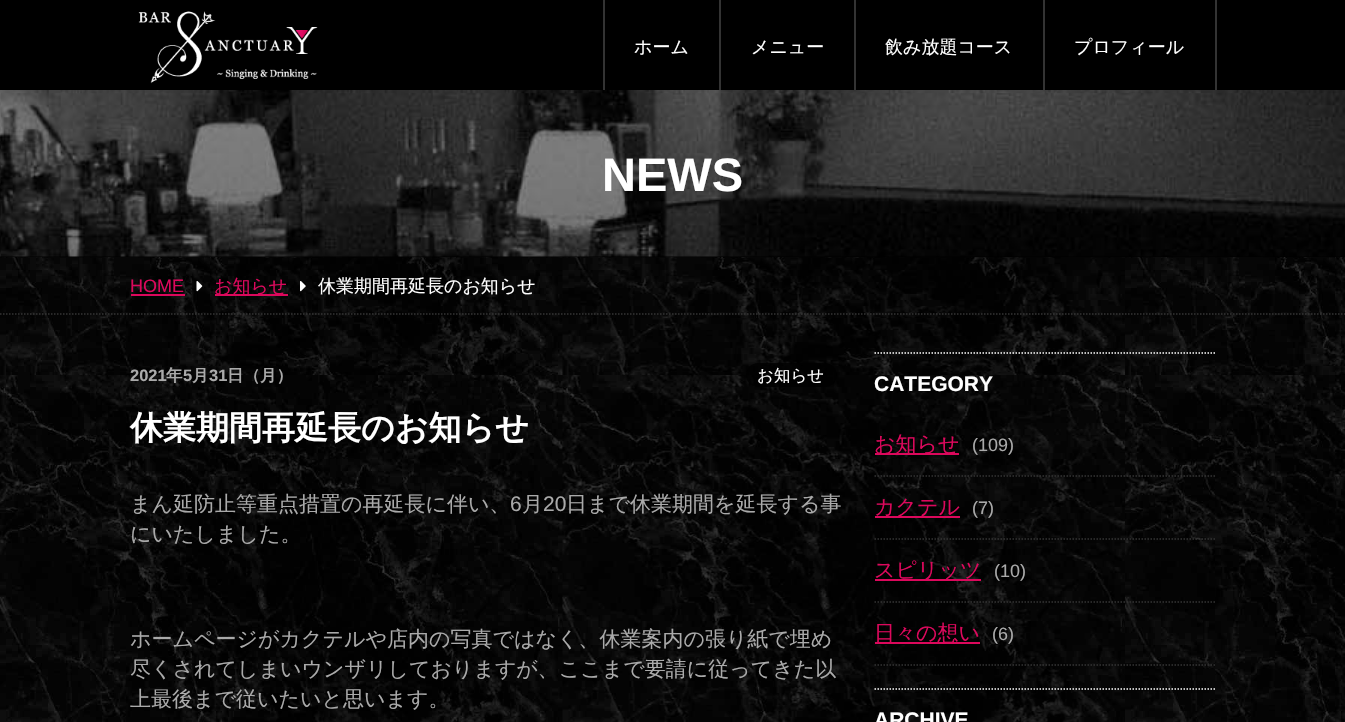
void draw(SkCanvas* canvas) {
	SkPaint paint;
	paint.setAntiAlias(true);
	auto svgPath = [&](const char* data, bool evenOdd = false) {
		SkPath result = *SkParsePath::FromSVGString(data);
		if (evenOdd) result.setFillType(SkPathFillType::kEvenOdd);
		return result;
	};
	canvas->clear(0xffffffff);
	canvas->drawImageRect(SkImages::DeferredFromEncodedData(SkData::MakeFromFileName("img1.png")), SkRect::MakeXYWH(0, 257, 1345, 465), SkSamplingOptions());
	paint.setColor(0xff000000);
	canvas->drawRect(SkRect::MakeXYWH(0, 0, 1345, 90), paint);
	canvas->drawImageRect(SkImages::DeferredFromEncodedData(SkData::MakeFromFileName("img2.png")), SkRect::MakeXYWH(138, 11, 180, 73), SkSamplingOptions());
	paint.setColor(0xff333333);
	canvas->drawRect(SkRect::MakeXYWH(1215, 0, 2, 90), paint);
	canvas->drawRect(SkRect::MakeXYWH(603, 0, 2, 90), paint);
	SkFont f1(fontMgr->matchFamilyStyle("WenQuanYi Zen Hei", SkFontStyle(500, SkFontStyle::kNormal_Width, SkFontStyle::kUpright_Slant)), 18);
	f1.setSubpixel(true);
	paint.setColor(0xffffffff);
	canvas->drawString("ホーム", 634, 53, f1, paint);
	paint.setColor(0xff333333);
	canvas->drawRect(SkRect::MakeXYWH(719, 0, 2, 90), paint);
	paint.setColor(0xffffffff);
	canvas->drawString("メニュー", 751, 53, f1, paint);
	paint.setColor(0xff333333);
	canvas->drawRect(SkRect::MakeXYWH(854, 0, 2, 90), paint);
	paint.setColor(0xffffffff);
	canvas->drawString("飲み放題コース", 885, 53, f1, paint);
	paint.setColor(0xff333333);
	canvas->drawRect(SkRect::MakeXYWH(1043, 0, 2, 90), paint);
	paint.setColor(0xffffffff);
	canvas->drawString("プロフィール", 1074, 53, f1, paint);
	paint.setColor(0xff000000);
	canvas->drawRect(SkRect::MakeXYWH(0, 256, 1345, 1), paint);
	canvas->drawImageRect(SkImages::DeferredFromEncodedData(SkData::MakeFromFileName("img3.png")), SkRect::MakeXYWH(0, 90, 1345, 167), SkSamplingOptions());
	SkFont f2(fontMgr->matchFamilyStyle("Liberation Sans", SkFontStyle::Bold()), 47);
	f2.setSubpixel(true);
	paint.setColor(0xffffffff);
	canvas->drawString("NEWS", 602, 191, f2, paint);
	paint.setStroke(true);
	paint.setStrokeWidth(1.5);
	paint.setColor(0xff333333);
	paint.setPathEffect(SkDashPathEffect::Make({{1.5f, 1.5f}}, 0));
	canvas->drawPath(svgPath("M0 314H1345.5"), paint);
	paint.setPathEffect(nullptr);
	SkFont f3(fontMgr->matchFamilyStyle("Liberation Sans", SkFontStyle::Normal()), 18);
	f3.setSubpixel(true);
	paint.setStroke(false);
	paint.setColor(0xffdc085c);
	canvas->drawString("HOME", 130, 292, f3, paint);
	canvas->drawRect(SkRect::MakeXYWH(131, 294, 54, 2), paint);
	canvas->drawImageRect(SkImages::DeferredFromEncodedData(SkData::MakeFromFileName("img4.png")), SkRect::MakeXYWH(196, 281, 7, 11), SkSamplingOptions());
	canvas->drawRect(SkRect::MakeXYWH(215, 294, 73, 2), paint);
	canvas->drawString("お知らせ", 214, 292, f1, paint);
	canvas->drawImageRect(SkImages::DeferredFromEncodedData(SkData::MakeFromFileName("img5.png")), SkRect::MakeXYWH(300, 281, 6, 11), SkSamplingOptions());
	paint.setColor(0xffffffff);
	canvas->drawString("休業期間再延長のお知らせ", 318, 292, f1, paint);
	SkFont f4(fontMgr->matchFamilyStyle("Liberation Sans", SkFontStyle::Bold()), 16.5);
	f4.setSubpixel(true);
	paint.setColor(0xffaaaaaa);
	canvas->drawString("2021", 130, 381, f4, paint);
	SkFont f5(fontMgr->matchFamilyStyle("WenQuanYi Zen Hei", SkFontStyle::Bold()), 16.5);
	f5.setSubpixel(true);
	canvas->drawString("年", 166, 381, f5, paint);
	canvas->drawString("5", 183, 381, f4, paint);
	canvas->drawString("月", 192, 381, f5, paint);
	canvas->drawString("31", 209, 381, f4, paint);
	canvas->drawString("日（月）", 227, 381, f5, paint);
	paint.setColor(0xcc000000);
	canvas->drawRoundRect(SkRect::MakeXYWH(746, 363, 91, 24), 12, 12, paint);
	SkFont f6(fontMgr->matchFamilyStyle("WenQuanYi Zen Hei", SkFontStyle(500, SkFontStyle::kNormal_Width, SkFontStyle::kUpright_Slant)), 16.5);
	f6.setSubpixel(true);
	paint.setColor(0xffffffff);
	canvas->drawString("お知らせ", 757, 381, f6, paint);
	SkFont f7(fontMgr->matchFamilyStyle("WenQuanYi Zen Hei", SkFontStyle::Bold()), 33);
	f7.setSubpixel(true);
	canvas->drawString("休業期間再延長のお知らせ", 130, 439, f7, paint);
	SkFont f8(fontMgr->matchFamilyStyle("WenQuanYi Zen Hei", SkFontStyle(500, SkFontStyle::kNormal_Width, SkFontStyle::kUpright_Slant)), 21);
	f8.setSubpixel(true);
	paint.setColor(0xffaaaaaa);
	canvas->drawString("まん延防止等重点措置の再延長に伴い、", 130, 511, f8, paint);
	SkFont f9(fontMgr->matchFamilyStyle("Liberation Sans", SkFontStyle::Normal()), 21);
	f9.setSubpixel(true);
	canvas->drawString("6", 510, 511, f9, paint);
	canvas->drawString("月", 522, 511, f8, paint);
	canvas->drawString("20", 543, 511, f9, paint);
	canvas->drawString("日まで休業期間を延長する事", 566, 511, f8, paint);
	canvas->drawString("にいたしました。", 130, 541, f8, paint);
	canvas->drawString("ホームページがカクテルや店内の写真ではなく、休業案内の張り紙で埋め", 130, 646, f8, paint);
	canvas->drawString("尽くされてしまいウンザリしておりますが、ここまで要請に従ってきた以", 130, 676, f8, paint);
	canvas->drawString("上最後まで従いたいと思います。", 130, 706, f8, paint);
	paint.setStroke(true);
	paint.setColor(0xffffffff);
	paint.setPathEffect(SkDashPathEffect::Make({{1.5f, 1.5f}}, 0));
	canvas->drawPath(svgPath("M874.5 353H1216.5"), paint);
	paint.setPathEffect(nullptr);
	SkFont f10(fontMgr->matchFamilyStyle("Liberation Sans", SkFontStyle::Bold()), 21);
	f10.setSubpixel(true);
	paint.setStroke(false);
	canvas->drawString("CATEGORY", 874, 391, f10, paint);
	paint.setStroke(true);
	paint.setColor(0xff333333);
	paint.setPathEffect(SkDashPathEffect::Make({{1.5f, 1.5f}}, 0));
	canvas->drawPath(svgPath("M874.5 476H1216.5"), paint);
	paint.setPathEffect(nullptr);
	paint.setStroke(false);
	paint.setColor(0xffdc085c);
	canvas->drawRect(SkRect::MakeXYWH(875, 453, 84, 2), paint);
	canvas->drawString("お知らせ", 874, 451, f8, paint);
	paint.setColor(0xffaaaaaa);
	canvas->drawString("(109)", 972, 451, f3, paint);
	paint.setStroke(true);
	paint.setColor(0xff333333);
	paint.setPathEffect(SkDashPathEffect::Make({{1.5f, 1.5f}}, 0));
	canvas->drawPath(svgPath("M874.5 539H1216.5"), paint);
	paint.setPathEffect(nullptr);
	paint.setStroke(false);
	paint.setColor(0xffdc085c);
	canvas->drawRect(SkRect::MakeXYWH(875, 516, 85, 2), paint);
	canvas->drawString("カクテル", 874, 514, f8, paint);
	paint.setColor(0xffaaaaaa);
	canvas->drawString("(7)", 972, 514, f3, paint);
	paint.setStroke(true);
	paint.setColor(0xff333333);
	paint.setPathEffect(SkDashPathEffect::Make({{1.5f, 1.5f}}, 0));
	canvas->drawPath(svgPath("M874.5 602H1216.5"), paint);
	paint.setPathEffect(nullptr);
	paint.setStroke(false);
	paint.setColor(0xffdc085c);
	canvas->drawRect(SkRect::MakeXYWH(875, 579, 106, 2), paint);
	canvas->drawString("スピリッツ", 874, 577, f8, paint);
	paint.setColor(0xffaaaaaa);
	canvas->drawString("(10)", 994, 577, f3, paint);
	paint.setStroke(true);
	paint.setColor(0xff333333);
	paint.setPathEffect(SkDashPathEffect::Make({{1.5f, 1.5f}}, 0));
	canvas->drawPath(svgPath("M874.5 665H1216.5"), paint);
	paint.setPathEffect(nullptr);
	paint.setStroke(false);
	paint.setColor(0xffdc085c);
	canvas->drawRect(SkRect::MakeXYWH(875, 642, 105, 2), paint);
	canvas->drawString("日々の想い", 874, 640, f8, paint);
	paint.setColor(0xffaaaaaa);
	canvas->drawString("(6)", 992, 640, f3, paint);
	paint.setStroke(true);
	paint.setColor(0xffffffff);
	paint.setPathEffect(SkDashPathEffect::Make({{1.5f, 1.5f}}, 0));
	canvas->drawPath(svgPath("M874.5 689H1216.5"), paint);
	paint.setPathEffect(nullptr);
	paint.setStroke(false);
	canvas->drawString("ARCHIVE", 874, 727, f10, paint);
}
